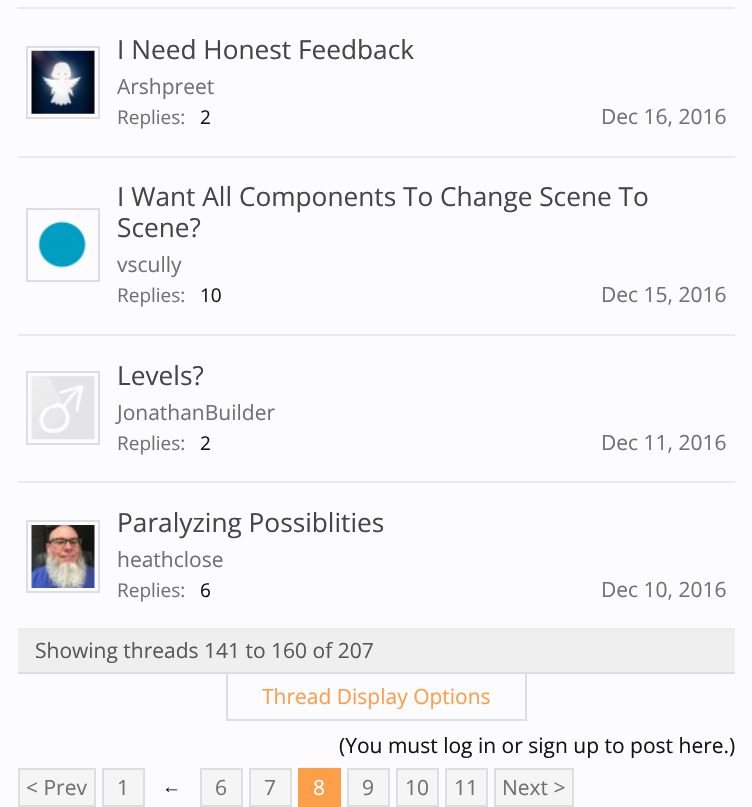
void draw(SkCanvas* canvas) {
	SkPaint paint;
	paint.setAntiAlias(true);
	canvas->clear(0xfffcfcff);
	paint.setColor(0xffebebeb);
	canvas->drawRect(SkRect::MakeXYWH(18, 7, 717, 2), paint);
	canvas->drawRect(SkRect::MakeXYWH(18, 156, 717, 2), paint);
	paint.setStroke(true);
	paint.setStrokeWidth(2);
	paint.setColor(0xffdedede);
	canvas->drawRect(SkRect::MakeXYWH(27, 47, 72, 71), paint);
	canvas->drawImageRect(SkImages::DeferredFromEncodedData(SkData::MakeFromFileName("img1.png")), SkRect::MakeXYWH(31, 50, 64, 64), SkSamplingOptions());
	SkFont f1(fontMgr->matchFamilyStyle("Open Sans", SkFontStyle::Normal()), 26.25);
	f1.setSubpixel(true);
	paint.setStroke(false);
	paint.setColor(0xff464646);
	canvas->drawString("I Need Honest Feedback", 117, 59, f1, paint);
	SkFont f2(fontMgr->matchFamilyStyle("Open Sans", SkFontStyle::Normal()), 21);
	f2.setSubpixel(true);
	paint.setColor(0xff717171);
	canvas->drawString("Arshpreet", 117, 94, f2, paint);
	canvas->drawString("Dec 16, 2016", 601, 124, f2, paint);
	SkFont f3(fontMgr->matchFamilyStyle("Open Sans", SkFontStyle::Normal()), 19);
	f3.setSubpixel(true);
	canvas->drawString("Replies:", 117, 124, f3, paint);
	paint.setColor(0xff141414);
	canvas->drawString("2", 200, 124, f3, paint);
	paint.setColor(0xffebebeb);
	canvas->drawRect(SkRect::MakeXYWH(18, 334, 717, 2), paint);
	paint.setStroke(true);
	paint.setColor(0xffdedede);
	canvas->drawRect(SkRect::MakeXYWH(27, 209, 72, 72), paint);
	canvas->drawImageRect(SkImages::DeferredFromEncodedData(SkData::MakeFromFileName("img2.png")), SkRect::MakeXYWH(38, 221, 48, 47), SkSamplingOptions());
	paint.setStroke(false);
	paint.setColor(0xff464646);
	canvas->drawString("I Want All Components To Change Scene To", 117, 206, f1, paint);
	canvas->drawString("Scene?", 117, 237, f1, paint);
	paint.setColor(0xff717171);
	canvas->drawString("vscully", 117, 272, f2, paint);
	canvas->drawString("Replies:", 117, 302, f3, paint);
	paint.setColor(0xff141414);
	canvas->drawString("10", 200, 302, f3, paint);
	paint.setColor(0xff717171);
	canvas->drawString("Dec 15, 2016", 601, 302, f2, paint);
	paint.setColor(0xffebebeb);
	canvas->drawRect(SkRect::MakeXYWH(18, 481, 717, 2), paint);
	paint.setStroke(true);
	paint.setColor(0xffdedede);
	canvas->drawRect(SkRect::MakeXYWH(27, 372, 72, 72), paint);
	canvas->drawImageRect(SkImages::DeferredFromEncodedData(SkData::MakeFromFileName("img3.png")), SkRect::MakeXYWH(31, 376, 64, 64), SkSamplingOptions());
	paint.setStroke(false);
	paint.setColor(0xff464646);
	canvas->drawString("Levels?", 117, 385, f1, paint);
	paint.setColor(0xff717171);
	canvas->drawString("JonathanBuilder", 117, 420, f2, paint);
	canvas->drawString("Dec 11, 2016", 601, 450, f2, paint);
	canvas->drawString("Replies:", 117, 450, f3, paint);
	paint.setColor(0xff141414);
	canvas->drawString("2", 200, 450, f3, paint);
	paint.setColor(0xffebebeb);
	canvas->drawRect(SkRect::MakeXYWH(18, 628, 717, 2), paint);
	paint.setStroke(true);
	paint.setColor(0xffdedede);
	canvas->drawRect(SkRect::MakeXYWH(27, 521, 72, 71), paint);
	canvas->drawImageRect(SkImages::DeferredFromEncodedData(SkData::MakeFromFileName("img4.png")), SkRect::MakeXYWH(31, 525, 64, 63), SkSamplingOptions());
	paint.setStroke(false);
	paint.setColor(0xff464646);
	canvas->drawString("Paralyzing Possiblities", 117, 532, f1, paint);
	paint.setColor(0xff717171);
	canvas->drawString("heathclose", 117, 567, f2, paint);
	canvas->drawString("Dec 10, 2016", 601, 597, f2, paint);
	canvas->drawString("Replies:", 117, 597, f3, paint);
	paint.setColor(0xff141414);
	canvas->drawString("6", 200, 597, f3, paint);
	paint.setColor(0xffefefef);
	canvas->drawRect(SkRect::MakeXYWH(18, 630, 717, 42), paint);
	paint.setColor(0xffdedede);
	canvas->drawRect(SkRect::MakeXYWH(18, 672, 717, 2), paint);
	paint.setColor(0xff585858);
	canvas->drawString("Showing threads 141 to 160 of 207", 35, 658, f2, paint);
	paint.setColor(0xffdedede);
	canvas->drawRect(SkRect::MakeXYWH(525, 674, 2, 47), paint);
	canvas->drawRect(SkRect::MakeXYWH(226, 719, 301, 2), paint);
	canvas->drawRect(SkRect::MakeXYWH(226, 674, 2, 47), paint);
	paint.setColor(0xfffd9e49);
	canvas->drawString("Thread Display Options", 262, 704, f2, paint);
	paint.setColor(0xff141414);
	canvas->drawString("(You must log in or sign up to post here.)", 339, 753, f2, paint);
	paint.setColor(0xfff5f5f5);
	canvas->drawRect(SkRect::MakeXYWH(19, 769, 76, 37), paint);
	paint.setStroke(true);
	paint.setColor(0xffdedede);
	canvas->drawRect(SkRect::MakeXYWH(19, 769, 76, 37), paint);
	paint.setStroke(false);
	paint.setColor(0xff717171);
	canvas->drawString("< Prev", 26, 795, f2, paint);
	paint.setColor(0xfff5f5f5);
	canvas->drawRect(SkRect::MakeXYWH(103, 769, 41, 37), paint);
	paint.setStroke(true);
	paint.setColor(0xffdedede);
	canvas->drawRect(SkRect::MakeXYWH(103, 769, 41, 37), paint);
	paint.setStroke(false);
	paint.setColor(0xff717171);
	canvas->drawString("1", 117, 795, f2, paint);
	SkFont f4(fontMgr->matchFamilyStyle("Liberation Sans", SkFontStyle::Normal()), 19);
	f4.setSubpixel(true);
	paint.setColor(0xff141414);
	canvas->drawString("←", 162, 793, f4, paint);
	paint.setColor(0xfff5f5f5);
	canvas->drawRect(SkRect::MakeXYWH(201, 769, 41, 37), paint);
	paint.setStroke(true);
	paint.setColor(0xffdedede);
	canvas->drawRect(SkRect::MakeXYWH(201, 769, 41, 37), paint);
	paint.setStroke(false);
	paint.setColor(0xff717171);
	canvas->drawString("6", 215, 795, f2, paint);
	paint.setColor(0xfff5f5f5);
	canvas->drawRect(SkRect::MakeXYWH(250, 769, 41, 37), paint);
	paint.setStroke(true);
	paint.setColor(0xffdedede);
	canvas->drawRect(SkRect::MakeXYWH(250, 769, 41, 37), paint);
	paint.setStroke(false);
	paint.setColor(0xff717171);
	canvas->drawString("7", 264, 795, f2, paint);
	paint.setColor(0xfffd9e49);
	canvas->drawRect(SkRect::MakeXYWH(298, 768, 43, 39), paint);
	paint.setColor(0xffffffff);
	canvas->drawString("8", 313, 795, f2, paint);
	paint.setColor(0xfff5f5f5);
	canvas->drawRect(SkRect::MakeXYWH(348, 769, 41, 37), paint);
	paint.setStroke(true);
	paint.setColor(0xffdedede);
	canvas->drawRect(SkRect::MakeXYWH(348, 769, 41, 37), paint);
	paint.setStroke(false);
	paint.setColor(0xff717171);
	canvas->drawString("9", 362, 795, f2, paint);
	paint.setColor(0xfff5f5f5);
	canvas->drawRect(SkRect::MakeXYWH(397, 769, 41, 37), paint);
	paint.setStroke(true);
	paint.setColor(0xffdedede);
	canvas->drawRect(SkRect::MakeXYWH(397, 769, 41, 37), paint);
	paint.setStroke(false);
	paint.setColor(0xff717171);
	canvas->drawString("10", 405, 795, f2, paint);
	paint.setColor(0xfff5f5f5);
	canvas->drawRect(SkRect::MakeXYWH(446, 769, 41, 37), paint);
	paint.setStroke(true);
	paint.setColor(0xffdedede);
	canvas->drawRect(SkRect::MakeXYWH(446, 769, 41, 37), paint);
	paint.setStroke(false);
	paint.setColor(0xff717171);
	canvas->drawString("11", 454, 795, f2, paint);
	paint.setColor(0xfff5f5f5);
	canvas->drawRect(SkRect::MakeXYWH(495, 769, 78, 37), paint);
	paint.setStroke(true);
	paint.setColor(0xffdedede);
	canvas->drawRect(SkRect::MakeXYWH(495, 769, 78, 37), paint);
	paint.setStroke(false);
	paint.setColor(0xff717171);
	canvas->drawString("Next >", 502, 795, f2, paint);
}
